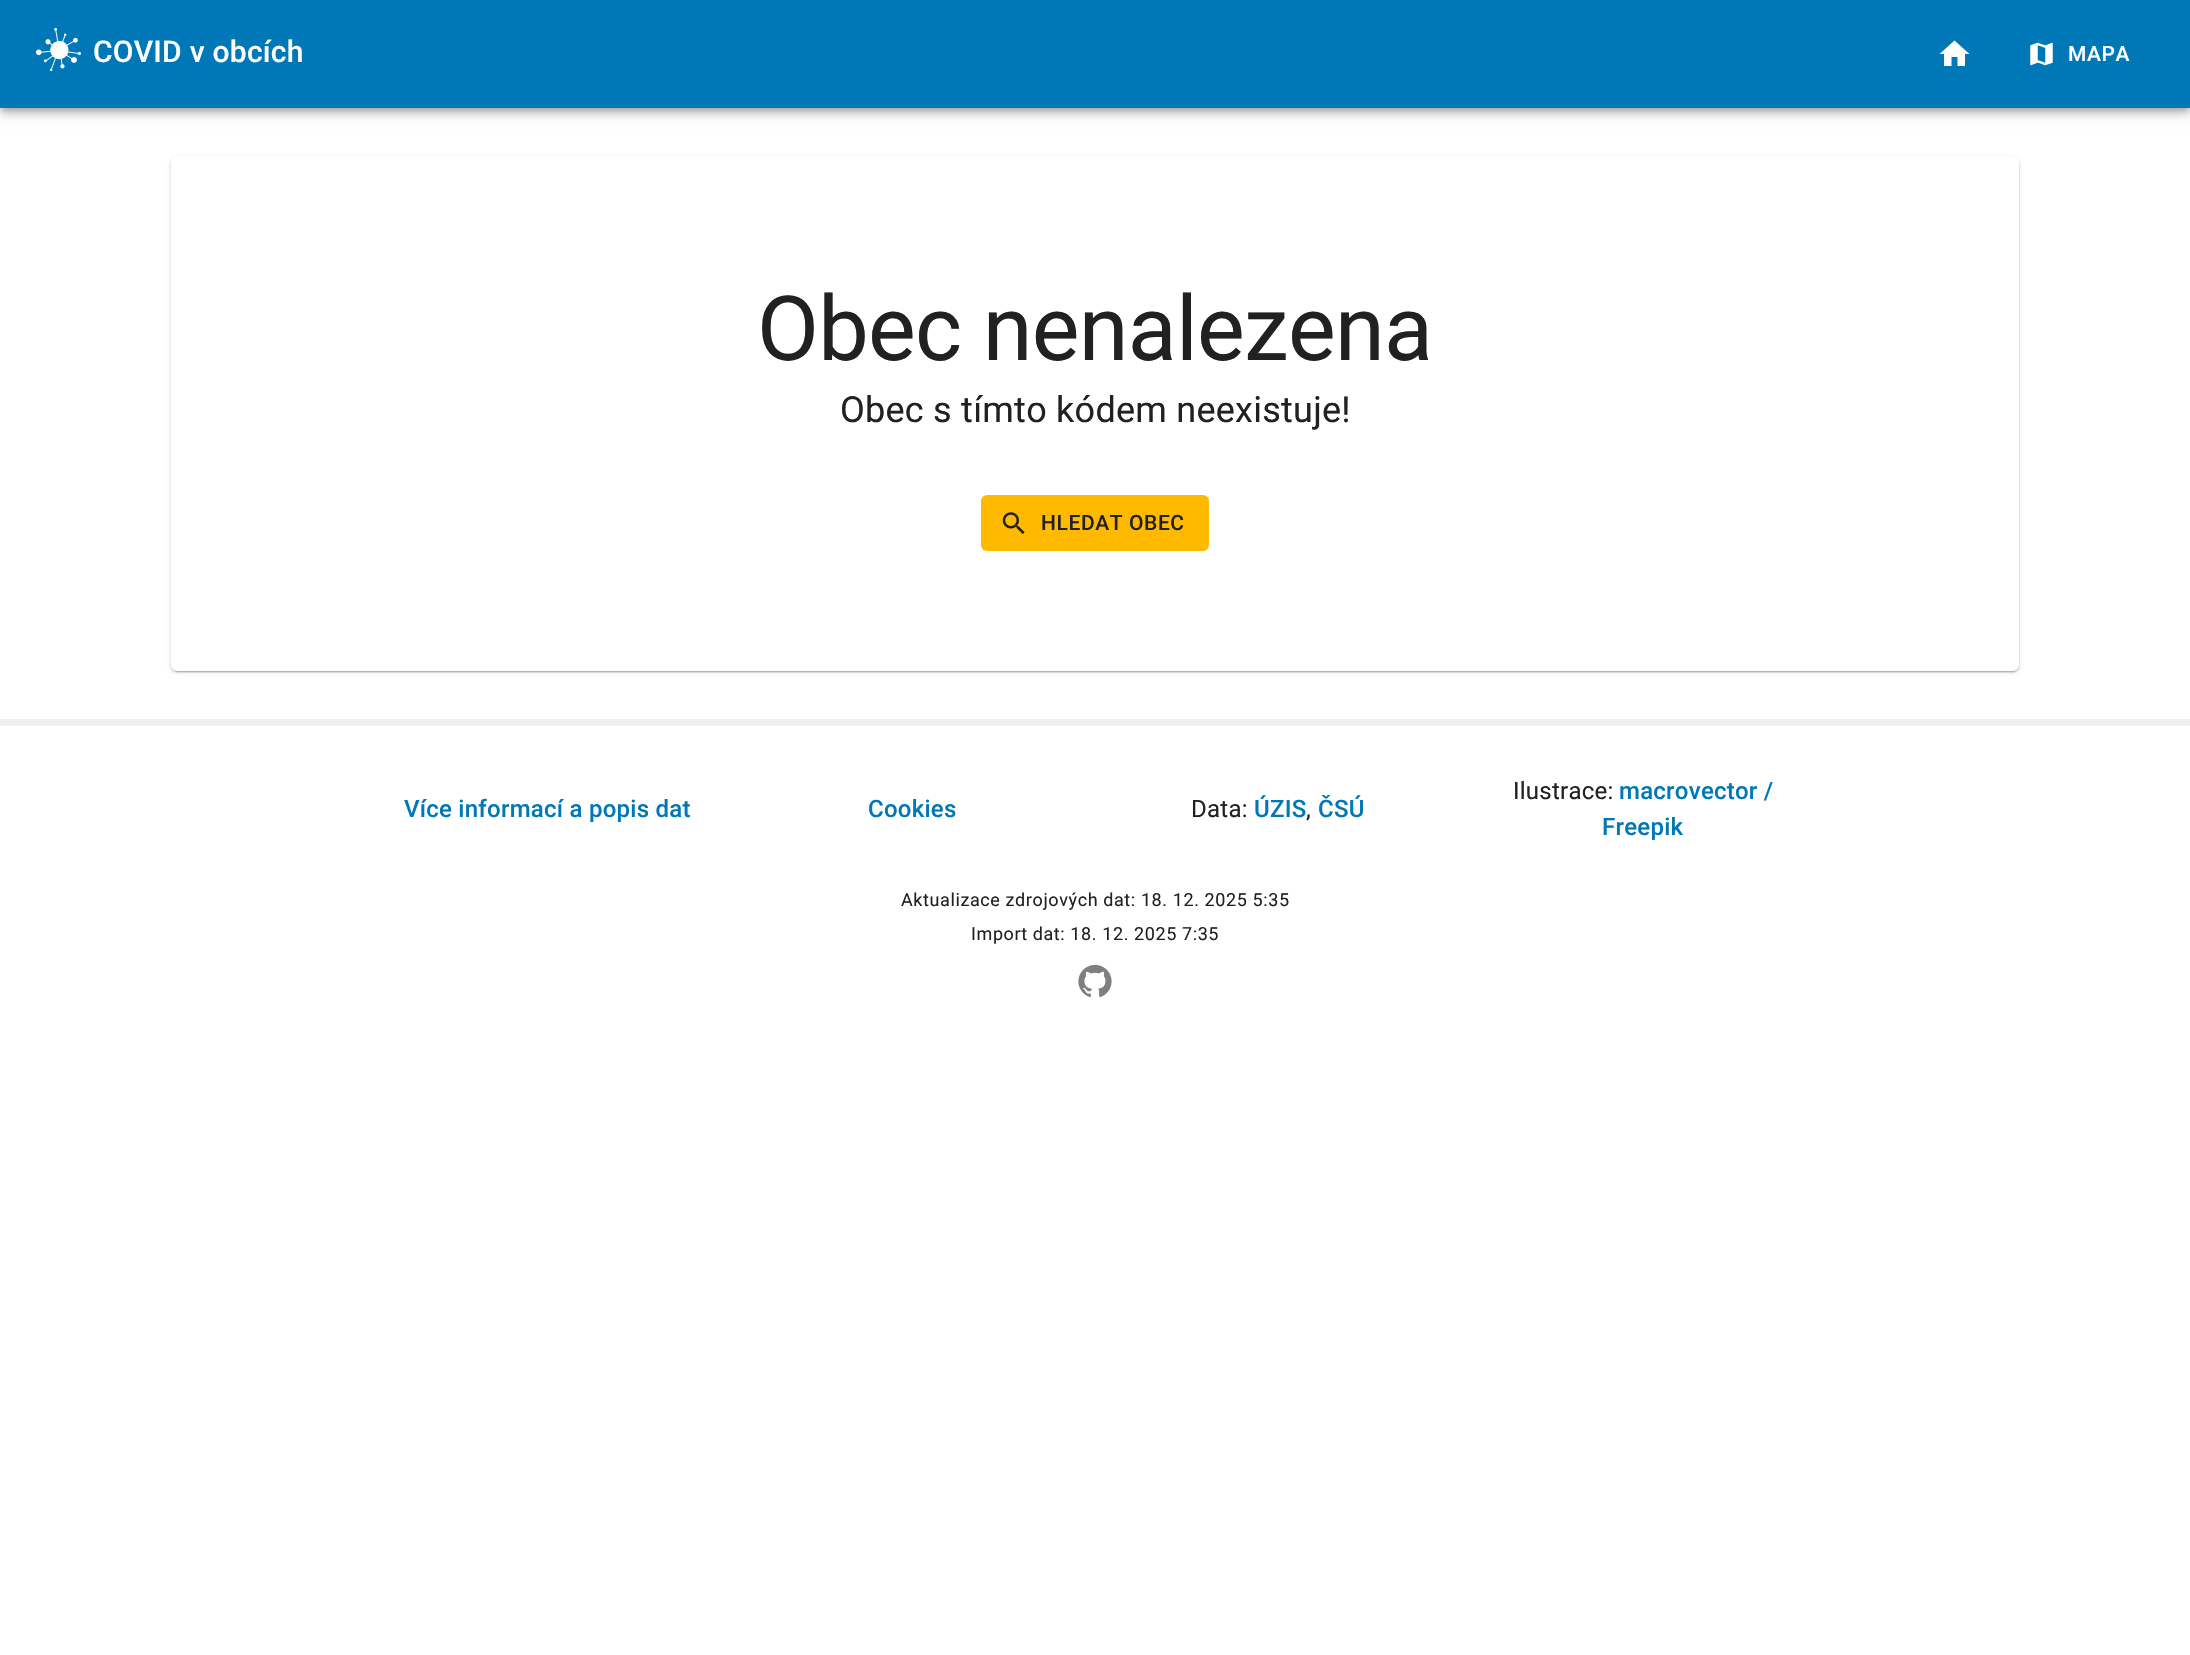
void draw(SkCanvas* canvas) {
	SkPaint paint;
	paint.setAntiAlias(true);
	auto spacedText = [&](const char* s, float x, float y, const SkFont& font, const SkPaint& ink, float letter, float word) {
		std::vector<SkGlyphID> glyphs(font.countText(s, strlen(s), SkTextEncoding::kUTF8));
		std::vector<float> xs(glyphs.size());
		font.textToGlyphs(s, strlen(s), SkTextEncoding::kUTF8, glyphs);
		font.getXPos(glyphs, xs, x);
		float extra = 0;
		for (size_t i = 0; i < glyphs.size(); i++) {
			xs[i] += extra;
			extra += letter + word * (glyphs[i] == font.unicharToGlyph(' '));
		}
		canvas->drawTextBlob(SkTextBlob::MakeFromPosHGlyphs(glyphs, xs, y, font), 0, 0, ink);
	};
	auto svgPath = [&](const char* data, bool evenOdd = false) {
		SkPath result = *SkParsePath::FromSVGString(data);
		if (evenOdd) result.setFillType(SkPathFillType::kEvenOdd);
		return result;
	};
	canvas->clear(0xffffffff);
	paint.setColor(0x1f000000);
	paint.setMaskFilter(SkMaskFilter::MakeBlur(kNormal_SkBlurStyle, 7.5));
	canvas->drawRect(SkRect::MakeXYWH(0, 2, 2190, 108), paint);
	paint.setMaskFilter(nullptr);
	paint.setColor(0x24000000);
	paint.setMaskFilter(SkMaskFilter::MakeBlur(kNormal_SkBlurStyle, 4));
	canvas->drawRect(SkRect::MakeXYWH(0, 6, 2190, 108), paint);
	paint.setMaskFilter(nullptr);
	paint.setColor(0x33000000);
	paint.setMaskFilter(SkMaskFilter::MakeBlur(kNormal_SkBlurStyle, 3));
	canvas->drawRect(SkRect::MakeXYWH(2, 5, 2187, 105), paint);
	paint.setMaskFilter(nullptr);
	paint.setColor(0xff0078b8);
	canvas->drawRect(SkRect::MakeXYWH(0, 0, 2190, 108), paint);
	canvas->drawImageRect(SkImages::DeferredFromEncodedData(SkData::MakeFromFileName("img1.png")), SkRect::MakeXYWH(36, 27, 45, 45), SkSamplingOptions());
	SkFont f1(fontMgr->matchFamilyStyle("Roboto", SkFontStyle(500, SkFontStyle::kNormal_Width, SkFontStyle::kUpright_Slant)), 30);
	f1.setSubpixel(true);
	paint.setColor(0xffffffff);
	spacedText("COVID v obcích", 93, 62, f1, paint, 0.25, 0);
	canvas->drawPath(svgPath("M1951.5 66V57H1957.5V66H1965V54H1969.5L1954.5 40.5L1939.5 54H1944V66Z"), paint);
	canvas->drawImageRect(SkImages::DeferredFromEncodedData(SkData::MakeFromFileName("img2.png")), SkRect::MakeXYWH(2030, 42, 23, 24), SkSamplingOptions());
	SkFont f2(fontMgr->matchFamilyStyle("Roboto", SkFontStyle(500, SkFontStyle::kNormal_Width, SkFontStyle::kUpright_Slant)), 21);
	f2.setSubpixel(true);
	spacedText("MAPA", 2068, 61, f2, paint, 0.6, 0);
	paint.setColor(0x1f000000);
	paint.setMaskFilter(SkMaskFilter::MakeBlur(kNormal_SkBlurStyle, 2));
	canvas->drawRoundRect(SkRect::MakeXYWH(171, 158, 1848, 514), 6, 6, paint);
	paint.setMaskFilter(nullptr);
	paint.setColor(0x24000000);
	paint.setMaskFilter(SkMaskFilter::MakeBlur(kNormal_SkBlurStyle, 1));
	canvas->drawRoundRect(SkRect::MakeXYWH(171, 158, 1848, 514), 6, 6, paint);
	paint.setMaskFilter(nullptr);
	paint.setColor(0x33000000);
	paint.setMaskFilter(SkMaskFilter::MakeBlur(kNormal_SkBlurStyle, 1));
	canvas->drawRoundRect(SkRect::MakeXYWH(173, 161, 1845, 511), 5, 5, paint);
	paint.setMaskFilter(nullptr);
	paint.setColor(0xffffffff);
	canvas->drawRoundRect(SkRect::MakeXYWH(171, 156, 1848, 515), 6, 6, paint);
	SkFont f3(fontMgr->matchFamilyStyle("Roboto", SkFontStyle::Normal()), 90);
	f3.setSubpixel(true);
	paint.setColor(0xff212121);
	spacedText("Obec nenalezena", 757, 360, f3, paint, -0.75, 0);
	SkFont f4(fontMgr->matchFamilyStyle("Roboto", SkFontStyle::Normal()), 36);
	f4.setSubpixel(true);
	spacedText("Obec s tímto kódem neexistuje!", 840, 422, f4, paint, 0.25, 0);
	paint.setColor(0xffffba00);
	canvas->drawRoundRect(SkRect::MakeXYWH(981, 495, 228, 56), 6, 6, paint);
	canvas->drawImageRect(SkImages::DeferredFromEncodedData(SkData::MakeFromFileName("img3.png")), SkRect::MakeXYWH(1002, 512, 23, 22), SkSamplingOptions());
	paint.setColor(0xff212121);
	spacedText("HLEDAT OBEC", 1041, 530, f2, paint, 0.6, 0);
	paint.setColor(0xffefefef);
	canvas->drawRect(SkRect::MakeXYWH(0, 719, 2190, 7), paint);
	SkFont f5(fontMgr->matchFamilyStyle("Roboto", SkFontStyle(500, SkFontStyle::kNormal_Width, SkFontStyle::kUpright_Slant)), 24);
	f5.setSubpixel(true);
	paint.setColor(0xff0078b8);
	spacedText("Více informací a popis dat", 404, 817, f5, paint, 0.25, 0);
	spacedText("Cookies", 868, 817, f5, paint, 0.25, 0);
	SkFont f6(fontMgr->matchFamilyStyle("Roboto", SkFontStyle::Normal()), 24);
	f6.setSubpixel(true);
	paint.setColor(0xff212121);
	spacedText("Data:", 1191, 817, f6, paint, 0.25, 0);
	paint.setColor(0xff0078b8);
	spacedText("ÚZIS", 1254, 817, f5, paint, 0.25, 0);
	paint.setColor(0xff212121);
	spacedText(",", 1306, 817, f6, paint, 0.25, 0);
	paint.setColor(0xff0078b8);
	spacedText("ČSÚ", 1318, 817, f5, paint, 0.25, 0);
	paint.setColor(0xff212121);
	spacedText("Ilustrace:", 1513, 799, f6, paint, 0.25, 0);
	paint.setColor(0xff0078b8);
	spacedText("macrovector /", 1619, 799, f5, paint, 0.25, 0);
	spacedText("Freepik", 1602, 835, f5, paint, 0.25, 0);
	SkFont f7(fontMgr->matchFamilyStyle("Roboto", SkFontStyle::Normal()), 18);
	f7.setSubpixel(true);
	paint.setColor(0xff212121);
	spacedText("Aktualizace zdrojových dat: 18. 12. 2025 5:35", 901, 906, f7, paint, 0.6, 0);
	spacedText("Import dat: 18. 12. 2025 7:35", 971, 940, f7, paint, 0.6, 0);
	canvas->drawImageRect(SkImages::DeferredFromEncodedData(SkData::MakeFromFileName("img4.png")), SkRect::MakeXYWH(1078, 964, 34, 33), SkSamplingOptions());
}
